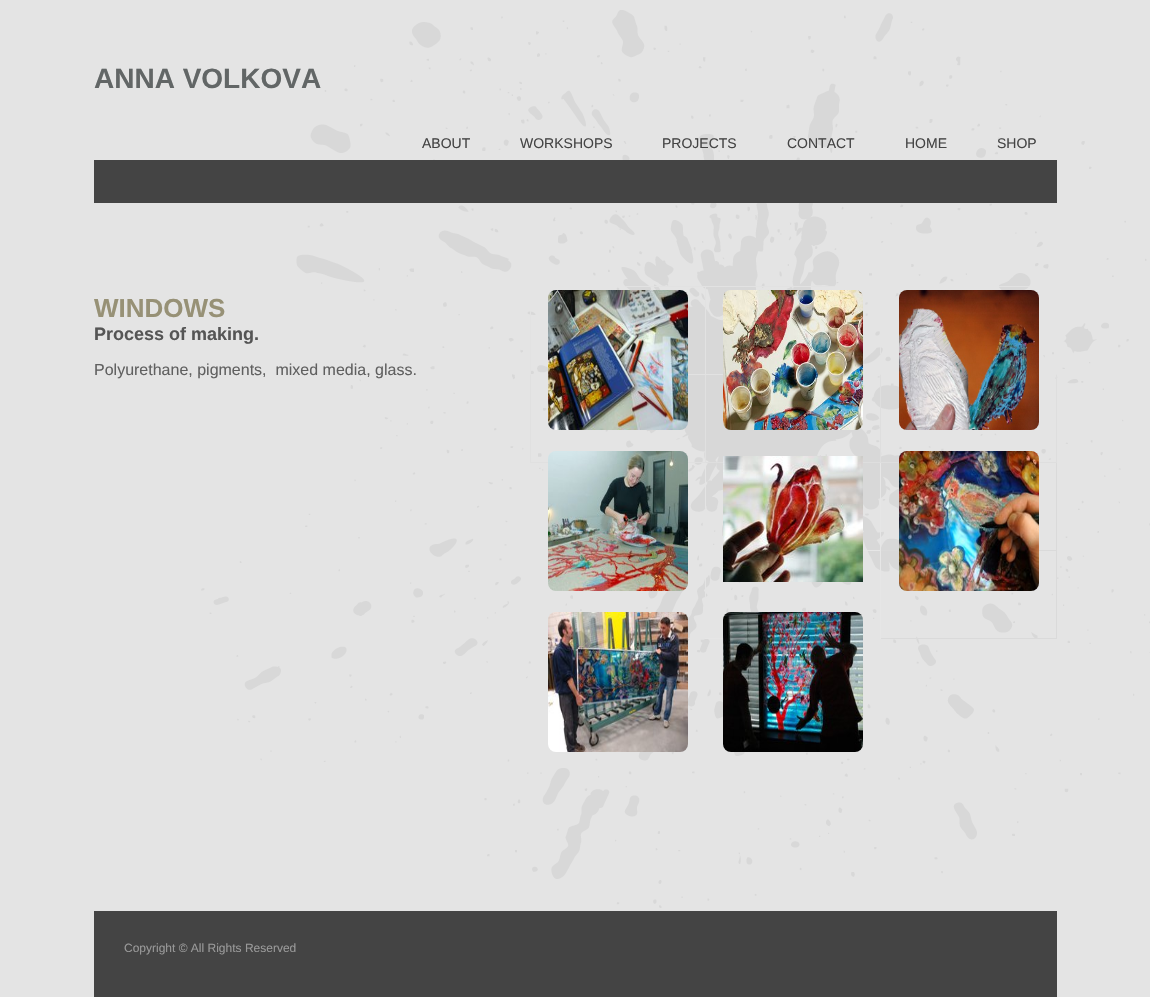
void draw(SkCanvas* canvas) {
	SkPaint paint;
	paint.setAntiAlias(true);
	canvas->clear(0xffe4e4e4);
	canvas->drawImageRect(SkImages::DeferredFromEncodedData(SkData::MakeFromFileName("img1.png")), SkRect::MakeXYWH(201, 10, 949, 987), SkSamplingOptions());
	SkFont f1(fontMgr->matchFamilyStyle("Liberation Sans", SkFontStyle::Bold()), 28);
	f1.setSubpixel(true);
	paint.setColor(0xff626666);
	canvas->drawString("ANNA VOLKOVA", 94, 88, f1, paint);
	SkFont f2(fontMgr->matchFamilyStyle("Liberation Sans", SkFontStyle::Normal()), 14);
	f2.setSubpixel(true);
	paint.setColor(0xff444444);
	canvas->drawString("ABOUT", 422, 148, f2, paint);
	canvas->drawString("WORKSHOPS", 520, 148, f2, paint);
	canvas->drawString("PROJECTS", 662, 148, f2, paint);
	canvas->drawString("CONTACT", 787, 148, f2, paint);
	canvas->drawString("HOME", 905, 148, f2, paint);
	canvas->drawString("SHOP", 997, 148, f2, paint);
	canvas->drawRect(SkRect::MakeXYWH(94, 160, 963, 43), paint);
	SkFont f3(fontMgr->matchFamilyStyle("Liberation Sans", SkFontStyle::Bold()), 26);
	f3.setSubpixel(true);
	paint.setColor(0xff979176);
	canvas->drawString("WINDOWS", 94, 317, f3, paint);
	SkFont f4(fontMgr->matchFamilyStyle("Liberation Sans", SkFontStyle::Bold()), 18);
	f4.setSubpixel(true);
	paint.setColor(0xff555555);
	canvas->drawString("Process of making.", 94, 340, f4, paint);
	SkFont f5(fontMgr->matchFamilyStyle("Liberation Sans", SkFontStyle::Normal()), 16);
	f5.setSubpixel(true);
	paint.setColor(0xff606060);
	canvas->drawString("Polyurethane, pigments,  mixed media, glass.", 94, 375, f5, paint);
	paint.setColor(0xffe2e2e2);
	canvas->drawRect(SkRect::MakeXYWH(705, 286, 129, 1), paint);
	paint.setColor(0xffdadada);
	canvas->drawRect(SkRect::MakeXYWH(1056, 462, 1, 177), paint);
	paint.setColor(0xffdedede);
	canvas->drawRect(SkRect::MakeXYWH(1056, 374, 1, 89), paint);
	paint.setColor(0xffdadada);
	canvas->drawRect(SkRect::MakeXYWH(880, 638, 177, 1), paint);
	paint.setColor(0xffe6e6e6);
	canvas->drawRect(SkRect::MakeXYWH(880, 550, 1, 89), paint);
	paint.setColor(0xffdadada);
	canvas->drawRect(SkRect::MakeXYWH(880, 550, 177, 1), paint);
	paint.setColor(0xffe6e6e6);
	canvas->drawRect(SkRect::MakeXYWH(880, 462, 1, 89), paint);
	paint.setColor(0xffdedede);
	canvas->drawRect(SkRect::MakeXYWH(880, 462, 177, 1), paint);
	canvas->drawRect(SkRect::MakeXYWH(880, 374, 1, 89), paint);
	paint.setColor(0xffe4e4e4);
	canvas->drawRect(SkRect::MakeXYWH(705, 462, 1, 46), paint);
	paint.setColor(0xffdedede);
	canvas->drawRect(SkRect::MakeXYWH(705, 462, 176, 1), paint);
	paint.setColor(0xffe0e0e0);
	canvas->drawRect(SkRect::MakeXYWH(705, 374, 1, 89), paint);
	paint.setColor(0xffe2e2e2);
	canvas->drawRect(SkRect::MakeXYWH(705, 374, 150, 1), paint);
	canvas->drawRect(SkRect::MakeXYWH(705, 286, 1, 89), paint);
	canvas->drawRect(SkRect::MakeXYWH(626, 286, 80, 1), paint);
	canvas->drawRect(SkRect::MakeXYWH(668, 374, 38, 1), paint);
	paint.setColor(0xffe0e0e0);
	canvas->drawRect(SkRect::MakeXYWH(530, 462, 176, 1), paint);
	canvas->drawRect(SkRect::MakeXYWH(530, 374, 1, 89), paint);
	paint.setColor(0xffe2e2e2);
	canvas->drawRect(SkRect::MakeXYWH(530, 311, 1, 64), paint);
	canvas->drawRect(SkRect::MakeXYWH(999, 286, 30, 1), paint);
	canvas->drawRect(SkRect::MakeXYWH(1056, 374, 1, 1), paint);
	canvas->drawRect(SkRect::MakeXYWH(880, 374, 1, 1), paint);
	canvas->drawRect(SkRect::MakeXYWH(880, 347, 1, 7), paint);
	paint.setColor(0xffe4e4e4);
	canvas->drawRect(SkRect::MakeXYWH(705, 578, 1, 19), paint);
	canvas->drawRect(SkRect::MakeXYWH(665, 638, 25, 1), paint);
	paint.setColor(0xffe6e6e6);
	canvas->drawRect(SkRect::MakeXYWH(705, 638, 150, 1), paint);
	canvas->drawRect(SkRect::MakeXYWH(725, 550, 156, 1), paint);
	canvas->drawImageRect(SkImages::DeferredFromEncodedData(SkData::MakeFromFileName("img2.png")), SkRect::MakeXYWH(548, 290, 140, 140), SkSamplingOptions());
	canvas->drawImageRect(SkImages::DeferredFromEncodedData(SkData::MakeFromFileName("img3.png")), SkRect::MakeXYWH(723, 290, 140, 140), SkSamplingOptions());
	canvas->drawImageRect(SkImages::DeferredFromEncodedData(SkData::MakeFromFileName("img4.png")), SkRect::MakeXYWH(899, 290, 140, 140), SkSamplingOptions());
	canvas->drawImageRect(SkImages::DeferredFromEncodedData(SkData::MakeFromFileName("img5.png")), SkRect::MakeXYWH(548, 451, 140, 140), SkSamplingOptions());
	canvas->drawImageRect(SkImages::DeferredFromEncodedData(SkData::MakeFromFileName("img6.png")), SkRect::MakeXYWH(723, 456, 140, 126), SkSamplingOptions());
	canvas->drawImageRect(SkImages::DeferredFromEncodedData(SkData::MakeFromFileName("img7.png")), SkRect::MakeXYWH(899, 451, 140, 140), SkSamplingOptions());
	canvas->drawImageRect(SkImages::DeferredFromEncodedData(SkData::MakeFromFileName("img8.png")), SkRect::MakeXYWH(548, 612, 140, 140), SkSamplingOptions());
	canvas->drawImageRect(SkImages::DeferredFromEncodedData(SkData::MakeFromFileName("img9.png")), SkRect::MakeXYWH(723, 612, 140, 140), SkSamplingOptions());
	paint.setColor(0xff444444);
	canvas->drawRect(SkRect::MakeXYWH(94, 911, 963, 86), paint);
	SkFont f6(fontMgr->matchFamilyStyle("Liberation Sans", SkFontStyle::Normal()), 12);
	f6.setSubpixel(true);
	paint.setColor(0xff999999);
	canvas->drawString("Copyright © All Rights Reserved", 124, 952, f6, paint);
}
